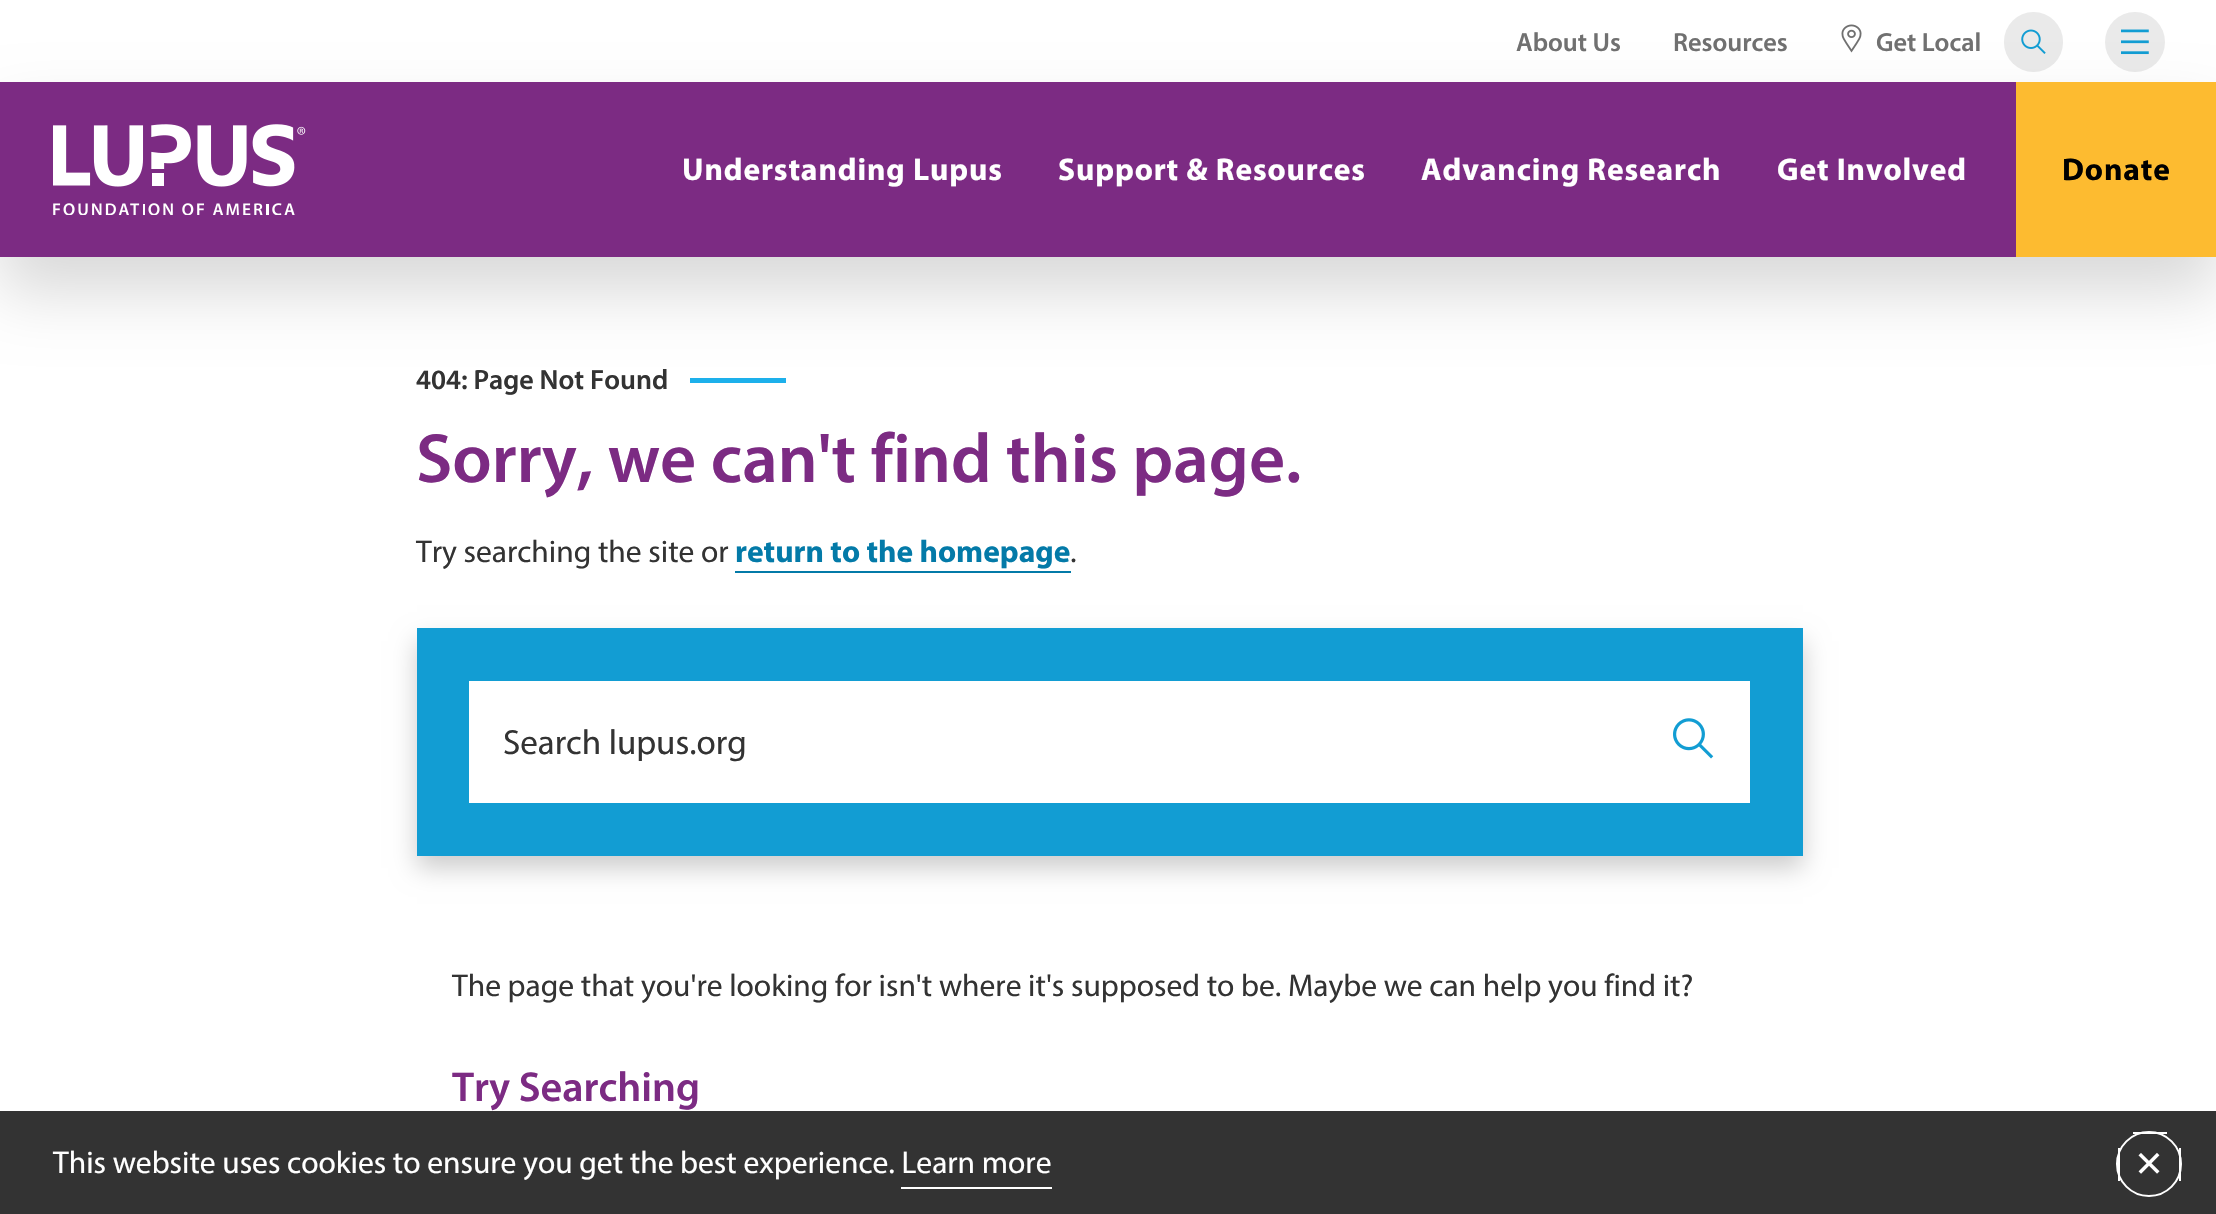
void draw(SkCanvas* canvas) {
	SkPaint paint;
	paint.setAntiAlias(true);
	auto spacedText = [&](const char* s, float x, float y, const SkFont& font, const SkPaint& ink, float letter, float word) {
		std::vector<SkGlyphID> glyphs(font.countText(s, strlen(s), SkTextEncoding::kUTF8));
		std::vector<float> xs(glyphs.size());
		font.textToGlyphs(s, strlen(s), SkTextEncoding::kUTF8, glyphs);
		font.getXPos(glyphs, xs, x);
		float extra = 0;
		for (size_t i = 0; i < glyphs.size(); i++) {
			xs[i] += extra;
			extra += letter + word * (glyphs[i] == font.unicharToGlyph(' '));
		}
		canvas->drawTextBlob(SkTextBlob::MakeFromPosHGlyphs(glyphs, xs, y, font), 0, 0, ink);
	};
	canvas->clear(0xffffffff);
	SkFont f1(fontMgr->matchFamilyStyle("Myriad", SkFontStyle(600, SkFontStyle::kNormal_Width, SkFontStyle::kUpright_Slant)), 26.25);
	f1.setSubpixel(true);
	paint.setColor(0xff707070);
	canvas->drawString("About Us", 1516, 51, f1, paint);
	canvas->drawString("Resources", 1673, 51, f1, paint);
	canvas->drawImageRect(SkImages::DeferredFromEncodedData(SkData::MakeFromFileName("img1.png")), SkRect::MakeXYWH(1841, 24, 21, 29), SkSamplingOptions());
	canvas->drawString("Get Local", 1876, 51, f1, paint);
	paint.setColor(0xffeaeaea);
	canvas->drawRoundRect(SkRect::MakeXYWH(2004, 12, 59, 60), 29.5, 29.5, paint);
	canvas->drawImageRect(SkImages::DeferredFromEncodedData(SkData::MakeFromFileName("img2.png")), SkRect::MakeXYWH(2021, 29, 25, 25), SkSamplingOptions());
	canvas->drawCircle(2135, 42, 30, paint);
	canvas->drawImageRect(SkImages::DeferredFromEncodedData(SkData::MakeFromFileName("img3.png")), SkRect::MakeXYWH(2121, 29, 28, 26), SkSamplingOptions());
	paint.setColor(0xff1db0eb);
	canvas->drawRect(SkRect::MakeXYWH(690, 378, 96, 5), paint);
	paint.setColor(0x26000000);
	paint.setMaskFilter(SkMaskFilter::MakeBlur(kNormal_SkBlurStyle, 31.5));
	canvas->drawRect(SkRect::MakeXYWH(0, 117, 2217, 175), paint);
	paint.setMaskFilter(nullptr);
	paint.setColor(0xff7c2b83);
	canvas->drawRect(SkRect::MakeXYWH(0, 82, 2016, 175), paint);
	canvas->drawImageRect(SkImages::DeferredFromEncodedData(SkData::MakeFromFileName("img4.png")), SkRect::MakeXYWH(53, 124, 253, 91), SkSamplingOptions());
	SkFont f2(fontMgr->matchFamilyStyle("Myriad", SkFontStyle::Bold()), 31.5);
	f2.setSubpixel(true);
	paint.setColor(0xffffffff);
	spacedText("Understanding Lupus", 682, 180, f2, paint, 0.9, 0);
	spacedText("Support & Resources", 1058, 180, f2, paint, 0.9, 0);
	spacedText("Advancing Research", 1421, 180, f2, paint, 0.9, 0);
	spacedText("Get Involved", 1777, 180, f2, paint, 0.9, 0);
	paint.setColor(0xfffdbb30);
	canvas->drawRect(SkRect::MakeXYWH(2016, 82, 200, 175), paint);
	paint.setColor(0xff000000);
	spacedText("Donate", 2062, 180, f2, paint, 0.9, 0);
	SkFont f3(fontMgr->matchFamilyStyle("Myriad", SkFontStyle(600, SkFontStyle::kNormal_Width, SkFontStyle::kUpright_Slant)), 28);
	f3.setSubpixel(true);
	paint.setColor(0xff333333);
	canvas->drawString("404: Page Not Found", 416, 389, f3, paint);
	SkFont f4(fontMgr->matchFamilyStyle("Myriad", SkFontStyle(600, SkFontStyle::kNormal_Width, SkFontStyle::kUpright_Slant)), 70);
	f4.setSubpixel(true);
	paint.setColor(0xff7c2b83);
	canvas->drawString("Sorry, we can't find this page.", 416, 482, f4, paint);
	SkFont f5(fontMgr->matchFamilyStyle("Myriad", SkFontStyle::Normal()), 31.5);
	f5.setSubpixel(true);
	paint.setColor(0xff333333);
	canvas->drawString("Try searching the site or", 416, 562, f5, paint);
	paint.setColor(0xff037aa8);
	canvas->drawString("return to the homepage", 735, 562, f2, paint);
	canvas->drawRect(SkRect::MakeXYWH(735, 571, 336, 2), paint);
	paint.setColor(0xff333333);
	canvas->drawString(".", 1070, 562, f5, paint);
	paint.setColor(0x33000000);
	paint.setMaskFilter(SkMaskFilter::MakeBlur(kNormal_SkBlurStyle, 12));
	canvas->drawRect(SkRect::MakeXYWH(417, 641, 1386, 227), paint);
	paint.setMaskFilter(nullptr);
	paint.setColor(0xff129dd3);
	canvas->drawRect(SkRect::MakeXYWH(417, 628, 1386, 228), paint);
	paint.setColor(0xffffffff);
	canvas->drawRect(SkRect::MakeXYWH(469, 681, 1281, 122), paint);
	SkFont f6(fontMgr->matchFamilyStyle("Myriad", SkFontStyle::Normal()), 35);
	f6.setSubpixel(true);
	paint.setColor(0xff333333);
	canvas->drawString("Search lupus.org", 503, 754, f6, paint);
	canvas->drawImageRect(SkImages::DeferredFromEncodedData(SkData::MakeFromFileName("img5.png")), SkRect::MakeXYWH(1673, 718, 41, 41), SkSamplingOptions());
	canvas->drawString("The page that you're looking for isn't where it's supposed to be. Maybe we can help you find it?", 452, 996, f5, paint);
	SkFont f7(fontMgr->matchFamilyStyle("Myriad", SkFontStyle(600, SkFontStyle::kNormal_Width, SkFontStyle::kUpright_Slant)), 42);
	f7.setSubpixel(true);
	paint.setColor(0xff7c2b83);
	canvas->drawString("Try Searching", 452, 1101, f7, paint);
	paint.setColor(0xff333333);
	canvas->drawRect(SkRect::MakeXYWH(0, 1111, 2216, 103), paint);
	paint.setColor(0xffffffff);
	canvas->drawString("This website uses cookies to ensure you get the best experience. Learn more", 53, 1173, f5, paint);
	canvas->drawRect(SkRect::MakeXYWH(901, 1187, 151, 2), paint);
	paint.setStroke(true);
	paint.setStrokeWidth(2);
	canvas->drawCircle(2149, 1164, 32, paint);
	paint.setStroke(false);
	canvas->drawRect(SkRect::MakeXYWH(2133, 1132, 34, 2), paint);
	canvas->drawRect(SkRect::MakeXYWH(2179, 1148, 2, 33), paint);
	canvas->drawRect(SkRect::MakeXYWH(2118, 1148, 2, 33), paint);
	canvas->drawImageRect(SkImages::DeferredFromEncodedData(SkData::MakeFromFileName("img6.png")), SkRect::MakeXYWH(2138, 1152, 22, 22), SkSamplingOptions());
}
